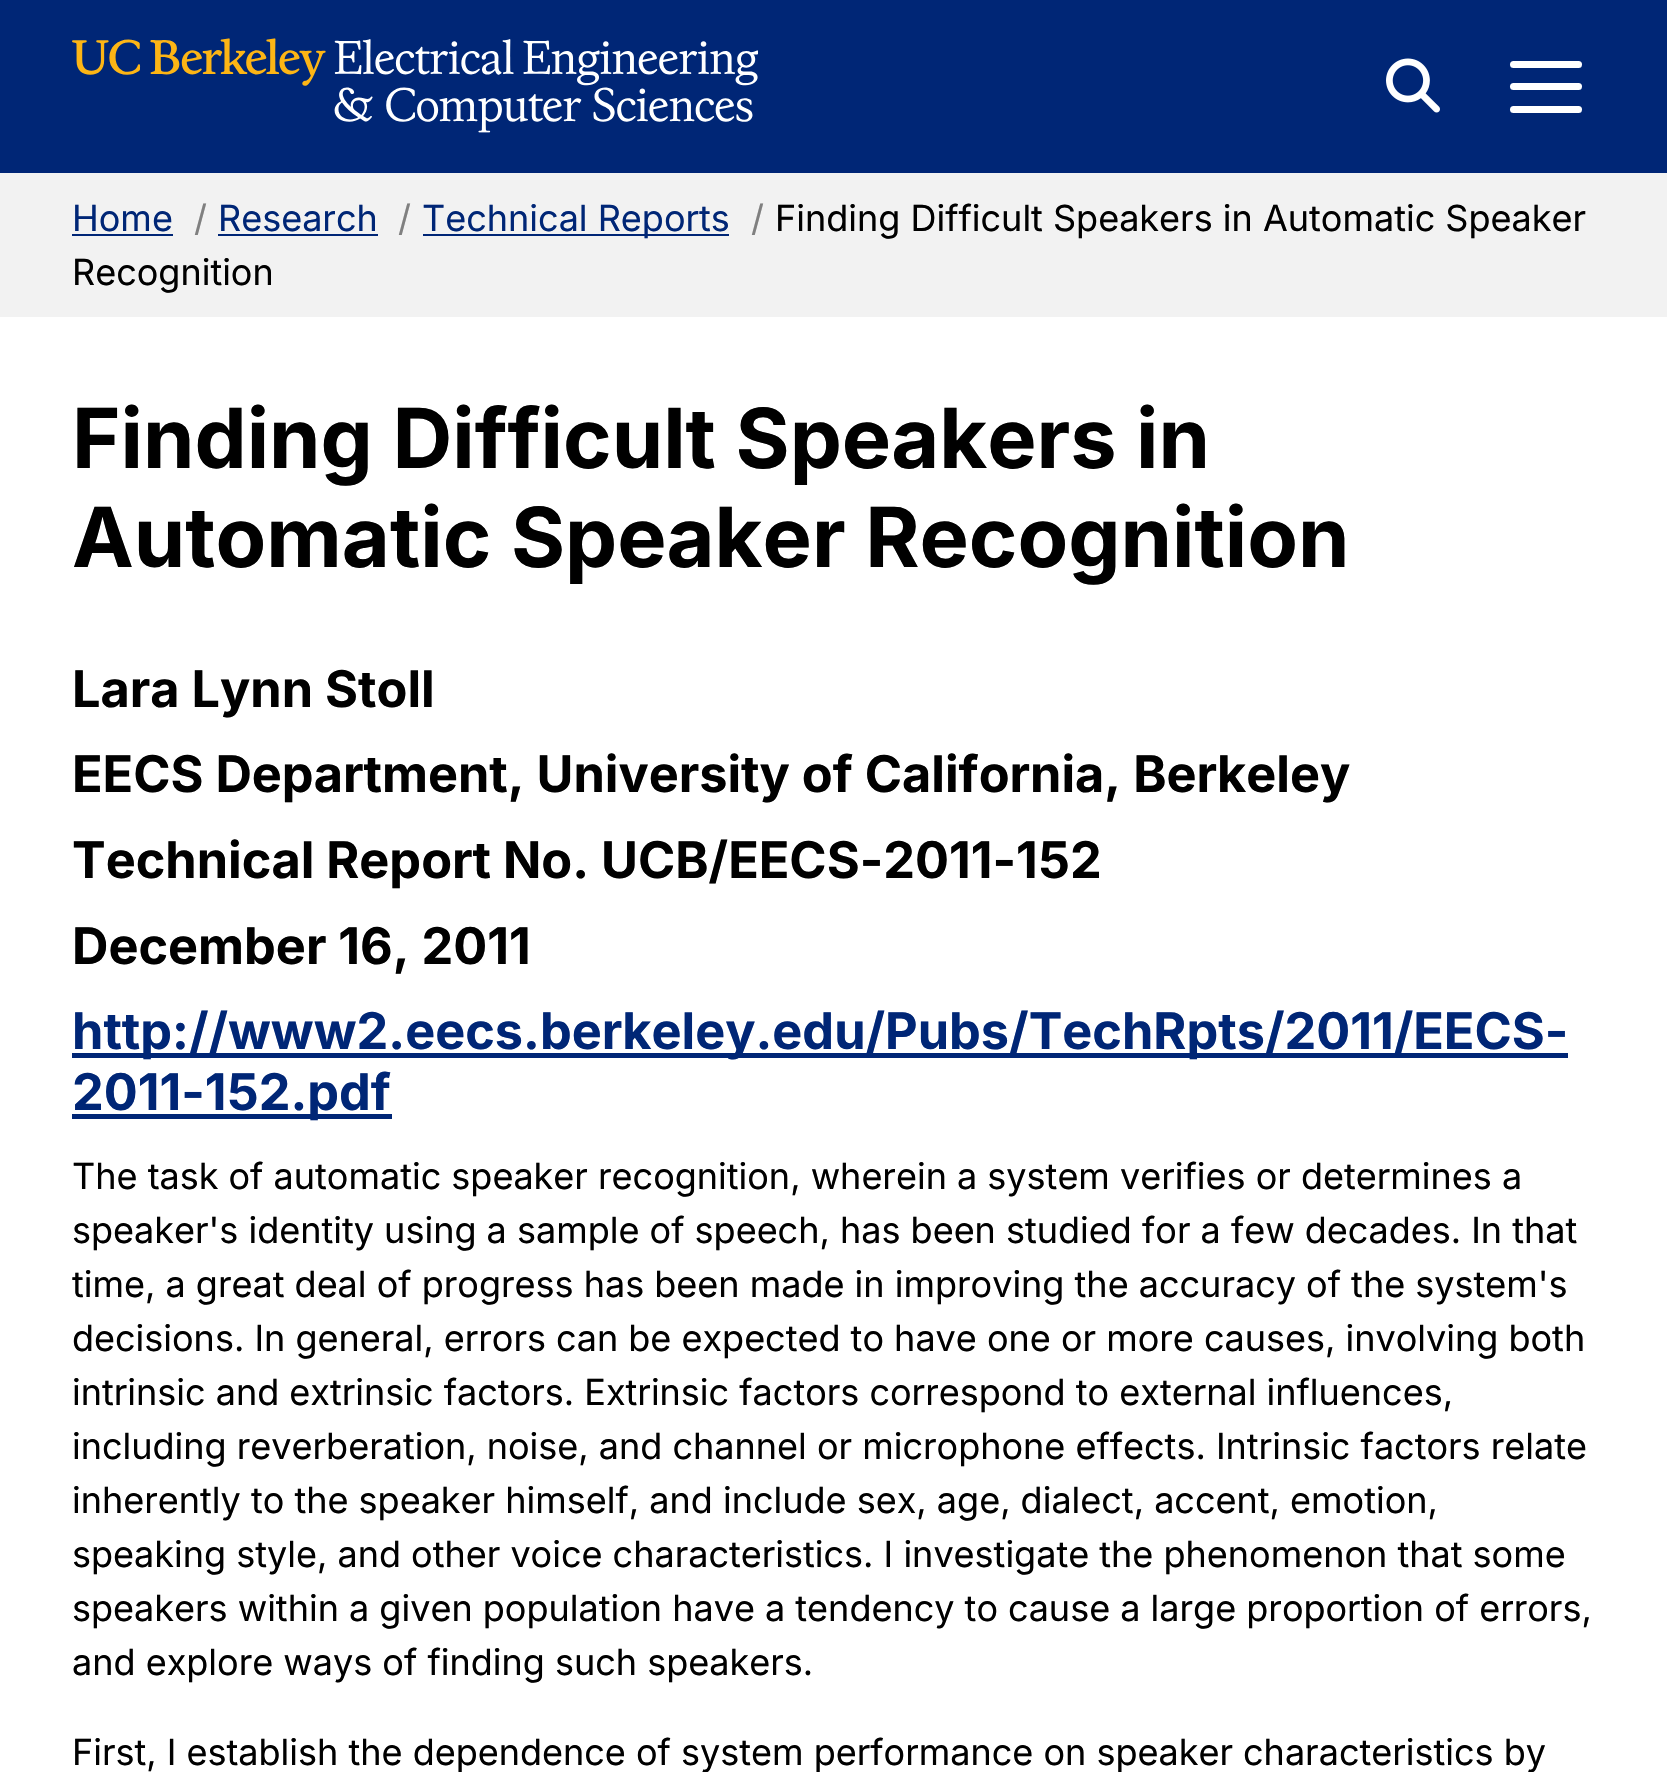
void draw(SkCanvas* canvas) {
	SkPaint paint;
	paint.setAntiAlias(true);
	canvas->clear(0xffffffff);
	paint.setColor(0xff002676);
	canvas->drawRect(SkRect::MakeXYWH(0, 0, 1667, 173), paint);
	canvas->drawImageRect(SkImages::DeferredFromEncodedData(SkData::MakeFromFileName("img1.png")), SkRect::MakeXYWH(72, 38, 686, 95), SkSamplingOptions());
	canvas->drawImageRect(SkImages::DeferredFromEncodedData(SkData::MakeFromFileName("img2.png")), SkRect::MakeXYWH(1386, 58, 54, 55), SkSamplingOptions());
	paint.setColor(0xffffffff);
	canvas->drawRoundRect(SkRect::MakeXYWH(1510, 61, 72, 7), 3.5, 3.5, paint);
	canvas->drawRoundRect(SkRect::MakeXYWH(1510, 83, 72, 7), 3.5, 3.5, paint);
	canvas->drawRoundRect(SkRect::MakeXYWH(1510, 106, 72, 7), 3.5, 3.5, paint);
	paint.setColor(0xfff2f2f2);
	canvas->drawRect(SkRect::MakeXYWH(0, 173, 1667, 144), paint);
	SkFont f1(fontMgr->matchFamilyStyle("Inter", SkFontStyle::Normal()), 36);
	f1.setSubpixel(true);
	paint.setColor(0xff002676);
	canvas->drawString("Home", 72, 231, f1, paint);
	canvas->drawRect(SkRect::MakeXYWH(72, 234, 101, 2), paint);
	paint.setColor(0xff808080);
	canvas->drawString("/", 194, 231, f1, paint);
	paint.setColor(0xff002676);
	canvas->drawString("Research", 218, 231, f1, paint);
	canvas->drawRect(SkRect::MakeXYWH(218, 234, 160, 2), paint);
	paint.setColor(0xff808080);
	canvas->drawString("/", 398, 231, f1, paint);
	paint.setColor(0xff002676);
	canvas->drawRect(SkRect::MakeXYWH(423, 234, 306, 2), paint);
	canvas->drawString("Technical Reports", 422, 231, f1, paint);
	paint.setColor(0xff808080);
	canvas->drawString("/", 751, 231, f1, paint);
	paint.setColor(0xff000000);
	canvas->drawString("Finding Difficult Speakers in Automatic Speaker", 775, 231, f1, paint);
	canvas->drawString("Recognition", 72, 285, f1, paint);
	SkFont f2(fontMgr->matchFamilyStyle("Inter", SkFontStyle::Bold()), 82.75);
	f2.setSubpixel(true);
	canvas->drawString("Finding Difficult Speakers in", 72, 468, f2, paint);
	canvas->drawString("Automatic Speaker Recognition", 72, 567, f2, paint);
	SkFont f3(fontMgr->matchFamilyStyle("Inter", SkFontStyle::Bold()), 50.4);
	f3.setSubpixel(true);
	canvas->drawString("Lara Lynn Stoll", 72, 707, f3, paint);
	canvas->drawString("EECS Department, University of California, Berkeley", 72, 792, f3, paint);
	canvas->drawString("Technical Report No. UCB/EECS-2011-152", 72, 878, f3, paint);
	canvas->drawString("December 16, 2011", 72, 964, f3, paint);
	paint.setColor(0xff002676);
	canvas->drawRect(SkRect::MakeXYWH(72, 1053, 1496, 5), paint);
	canvas->drawString("http://www2.eecs.berkeley.edu/Pubs/TechRpts/2011/EECS-", 72, 1049, f3, paint);
	canvas->drawRect(SkRect::MakeXYWH(72, 1114, 320, 5), paint);
	canvas->drawString("2011-152.pdf", 72, 1110, f3, paint);
	paint.setColor(0xff000000);
	canvas->drawString("The task of automatic speaker recognition, wherein a system verifies or determines a", 72, 1189, f1, paint);
	canvas->drawString("speaker's identity using a sample of speech, has been studied for a few decades. In that", 72, 1243, f1, paint);
	canvas->drawString("time, a great deal of progress has been made in improving the accuracy of the system's", 72, 1297, f1, paint);
	canvas->drawString("decisions. In general, errors can be expected to have one or more causes, involving both", 72, 1351, f1, paint);
	canvas->drawString("intrinsic and extrinsic factors. Extrinsic factors correspond to external influences,", 72, 1405, f1, paint);
	canvas->drawString("including reverberation, noise, and channel or microphone effects. Intrinsic factors relate", 72, 1459, f1, paint);
	canvas->drawString("inherently to the speaker himself, and include sex, age, dialect, accent, emotion,", 72, 1513, f1, paint);
	canvas->drawString("speaking style, and other voice characteristics. I investigate the phenomenon that some", 72, 1567, f1, paint);
	canvas->drawString("speakers within a given population have a tendency to cause a large proportion of errors,", 72, 1621, f1, paint);
	canvas->drawString("and explore ways of finding such speakers.", 72, 1675, f1, paint);
	canvas->drawString("First, I establish the dependence of system performance on speaker characteristics by", 72, 1765, f1, paint);
}
